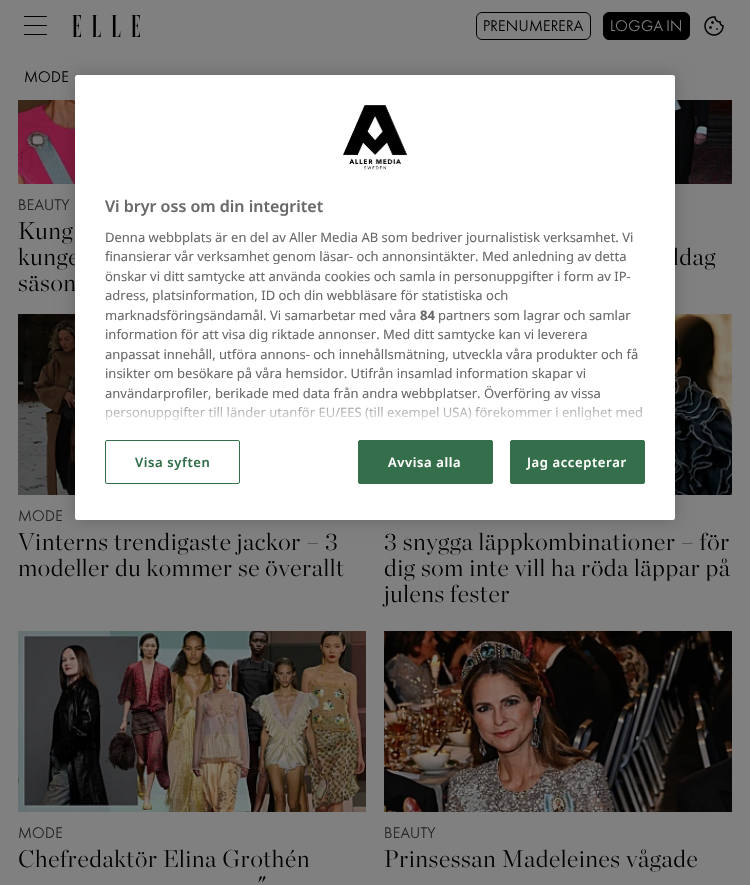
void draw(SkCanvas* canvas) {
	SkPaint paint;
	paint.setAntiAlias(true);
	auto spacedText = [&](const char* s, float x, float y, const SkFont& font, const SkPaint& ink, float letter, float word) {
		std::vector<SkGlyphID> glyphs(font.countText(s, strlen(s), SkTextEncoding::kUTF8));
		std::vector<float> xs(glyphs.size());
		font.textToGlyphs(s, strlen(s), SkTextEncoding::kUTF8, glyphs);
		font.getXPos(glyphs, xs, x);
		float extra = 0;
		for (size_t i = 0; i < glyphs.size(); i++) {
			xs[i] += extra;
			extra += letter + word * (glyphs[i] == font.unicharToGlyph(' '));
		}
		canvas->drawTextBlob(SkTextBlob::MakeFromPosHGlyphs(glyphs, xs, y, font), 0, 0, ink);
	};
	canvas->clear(0xff808080);
	paint.setColor(0xff000000);
	canvas->drawRoundRect(SkRect::MakeXYWH(24, 16, 23, 1), 0.5, 0.5, paint);
	canvas->drawRoundRect(SkRect::MakeXYWH(24, 25, 23, 1), 0.5, 0.5, paint);
	canvas->drawRoundRect(SkRect::MakeXYWH(24, 34, 23, 1), 0.5, 0.5, paint);
	canvas->drawImageRect(SkImages::DeferredFromEncodedData(SkData::MakeFromFileName("img1.png")), SkRect::MakeXYWH(72, 15, 68, 22), SkSamplingOptions());
	paint.setStroke(true);
	paint.setStrokeWidth(1);
	canvas->drawRoundRect(SkRect::MakeXYWH(476.5, 12.5, 114, 27), 5.5, 5.5, paint);
	SkFont f1(fontMgr->matchFamilyStyle("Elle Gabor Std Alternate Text", SkFontStyle::Normal()), 16);
	f1.setSubpixel(true);
	paint.setStroke(false);
	spacedText("PRENUMERERA", 483, 31, f1, paint, 0.25, 0);
	canvas->drawRoundRect(SkRect::MakeXYWH(603.5, 12.5, 86, 27), 5.5, 5.5, paint);
	paint.setStroke(true);
	canvas->drawRoundRect(SkRect::MakeXYWH(603.5, 12.5, 86, 27), 5.5, 5.5, paint);
	paint.setStroke(false);
	paint.setColor(0xff808080);
	spacedText("LOGGA IN", 610, 31, f1, paint, 0.25, 0);
	canvas->drawImageRect(SkImages::DeferredFromEncodedData(SkData::MakeFromFileName("img2.png")), SkRect::MakeXYWH(704, 16, 20, 20), SkSamplingOptions());
	paint.setColor(0xff000000);
	spacedText("MODE", 24, 82, f1, paint, 0.25, 0);
	canvas->drawImageRect(SkImages::DeferredFromEncodedData(SkData::MakeFromFileName("img3.png")), SkRect::MakeXYWH(18, 100, 57, 84), SkSamplingOptions());
	paint.setColor(0xff232323);
	spacedText("BEAUTY", 18, 210, f1, paint, 0.25, 0);
	SkFont f2(fontMgr->matchFamilyStyle("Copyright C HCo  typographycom", SkFontStyle(300, SkFontStyle::kNormal_Width, SkFontStyle::kUpright_Slant)), 24);
	f2.setSubpixel(true);
	paint.setColor(0xff000000);
	spacedText("Kung", 18, 239, f2, paint, 0.5, 0);
	spacedText("kunge", 18, 265, f2, paint, 0.5, 0);
	spacedText("säson", 18, 291, f2, paint, 0.5, 0);
	canvas->drawImageRect(SkImages::DeferredFromEncodedData(SkData::MakeFromFileName("img4.png")), SkRect::MakeXYWH(675, 100, 57, 84), SkSamplingOptions());
	spacedText("ddag", 666, 265, f2, paint, 0.5, 0);
	canvas->drawImageRect(SkImages::DeferredFromEncodedData(SkData::MakeFromFileName("img5.png")), SkRect::MakeXYWH(18, 314, 57, 181), SkSamplingOptions());
	paint.setColor(0xff232323);
	spacedText("MODE", 18, 521, f1, paint, 0.25, 0);
	paint.setColor(0xff000000);
	spacedText("Vinterns trendigaste jackor – 3", 18, 550, f2, paint, 0.5, 0);
	spacedText("modeller du kommer se överallt", 18, 576, f2, paint, 0.5, 0);
	canvas->drawImageRect(SkImages::DeferredFromEncodedData(SkData::MakeFromFileName("img6.png")), SkRect::MakeXYWH(675, 314, 57, 181), SkSamplingOptions());
	spacedText("3 snygga läppkombinationer – för", 384, 550, f2, paint, 0.5, 0);
	spacedText("dig som inte vill ha röda läppar på", 384, 576, f2, paint, 0.5, 0);
	spacedText("julens fester", 384, 602, f2, paint, 0.5, 0);
	canvas->drawImageRect(SkImages::DeferredFromEncodedData(SkData::MakeFromFileName("img7.png")), SkRect::MakeXYWH(18, 631, 348, 181), SkSamplingOptions());
	paint.setColor(0xff232323);
	spacedText("MODE", 18, 838, f1, paint, 0.25, 0);
	paint.setColor(0xff000000);
	spacedText("Chefredaktör Elina Grothén", 18, 867, f2, paint, 0.5, 0);
	spacedText("\"", 257, 893, f2, paint, 0.5, 0);
	canvas->drawImageRect(SkImages::DeferredFromEncodedData(SkData::MakeFromFileName("img8.png")), SkRect::MakeXYWH(384, 631, 348, 181), SkSamplingOptions());
	paint.setColor(0xff232323);
	spacedText("BEAUTY", 384, 838, f1, paint, 0.25, 0);
	paint.setColor(0xff000000);
	spacedText("Prinsessan Madeleines vågade", 384, 867, f2, paint, 0.5, 0);
	paint.setColor(0x33000000);
	paint.setMaskFilter(SkMaskFilter::MakeBlur(kNormal_SkBlurStyle, 9));
	canvas->drawRoundRect(SkRect::MakeXYWH(75, 75, 600, 445), 2.5, 2.5, paint);
	paint.setMaskFilter(nullptr);
	paint.setColor(0xffffffff);
	canvas->drawRoundRect(SkRect::MakeXYWH(75, 75, 600, 445), 2.5, 2.5, paint);
	canvas->drawImageRect(SkImages::DeferredFromEncodedData(SkData::MakeFromFileName("img9.png")), SkRect::MakeXYWH(343, 105, 64, 65), SkSamplingOptions());
	SkFont f3(fontMgr->matchFamilyStyle("Noto Sans", SkFontStyle(600, SkFontStyle::kNormal_Width, SkFontStyle::kUpright_Slant)), 16);
	f3.setSubpixel(true);
	paint.setColor(0xff696969);
	canvas->drawString("Vi bryr oss om din integritet", 105, 212, f3, paint);
	SkFont f4(fontMgr->matchFamilyStyle("Noto Sans", SkFontStyle::Normal()), 13);
	f4.setSubpixel(true);
	canvas->drawString("Denna webbplats är en del av Aller Media AB som bedriver journalistisk verksamhet. Vi", 105, 242, f4, paint);
	canvas->drawString("finansierar vår verksamhet genom läsar- och annonsintäkter. Med anledning av detta", 105, 261, f4, paint);
	canvas->drawString("önskar vi ditt samtycke att använda cookies och samla in personuppgifter i form av IP-", 105, 281, f4, paint);
	canvas->drawString("adress, platsinformation, ID och din webbläsare för statistiska och", 105, 300, f4, paint);
	canvas->drawString("marknadsföringsändamål. Vi samarbetar med våra", 105, 320, f4, paint);
	SkFont f5(fontMgr->matchFamilyStyle("Noto Sans", SkFontStyle::Bold()), 13);
	f5.setSubpixel(true);
	canvas->drawString("84", 420, 320, f5, paint);
	canvas->drawString("partners som lagrar och samlar", 438, 320, f4, paint);
	canvas->drawString("information för att visa dig riktade annonser. Med ditt samtycke kan vi leverera", 105, 339, f4, paint);
	canvas->drawString("anpassat innehåll, utföra annons- och innehållsmätning, utveckla våra produkter och få", 105, 359, f4, paint);
	canvas->drawString("insikter om besökare på våra hemsidor. Utifrån insamlad information skapar vi", 105, 378, f4, paint);
	canvas->drawString("användarprofiler, berikade med data från andra webbplatser. Överföring av vissa", 105, 398, f4, paint);
	canvas->drawString("personuppgifter till länder utanför EU/EES (till exempel USA) förekommer i enlighet med", 105, 417, f4, paint);
	{
		const SkColor colors[] = {0x00ffffff, 0xffffffff};
		const float stops[] = {0, 1};
		const SkPoint ends[] = {{395, 396}, {395, 426}};
		paint.setShader(SkGradientShader::MakeLinear(ends, colors, stops, 2, SkTileMode::kClamp));
		paint.setAlpha(255);
	}
	canvas->drawRect(SkRect::MakeXYWH(106, 397, 536, 24), paint);
	paint.setStroke(true);
	paint.setShader(nullptr);
	paint.setColor(0xff346e4a);
	canvas->drawRoundRect(SkRect::MakeXYWH(105.5, 440.5, 134, 43), 1.5, 1.5, paint);
	SkFont f6(fontMgr->matchFamilyStyle("Noto Sans", SkFontStyle(600, SkFontStyle::kNormal_Width, SkFontStyle::kUpright_Slant)), 13);
	f6.setSubpixel(true);
	paint.setStroke(false);
	spacedText("Visa syften", 135, 467, f6, paint, 0.6, 0);
	canvas->drawRoundRect(SkRect::MakeXYWH(358.5, 440.5, 134, 43), 1.5, 1.5, paint);
	paint.setStroke(true);
	canvas->drawRoundRect(SkRect::MakeXYWH(358.5, 440.5, 134, 43), 1.5, 1.5, paint);
	paint.setStroke(false);
	paint.setColor(0xffffffff);
	spacedText("Avvisa alla", 388, 467, f6, paint, 0.6, 0);
	paint.setColor(0xff346e4a);
	canvas->drawRoundRect(SkRect::MakeXYWH(510.5, 440.5, 134, 43), 1.5, 1.5, paint);
	paint.setStroke(true);
	canvas->drawRoundRect(SkRect::MakeXYWH(510.5, 440.5, 134, 43), 1.5, 1.5, paint);
	paint.setStroke(false);
	paint.setColor(0xffffffff);
	spacedText("Jag accepterar", 527, 467, f6, paint, 0.6, 0);
}
